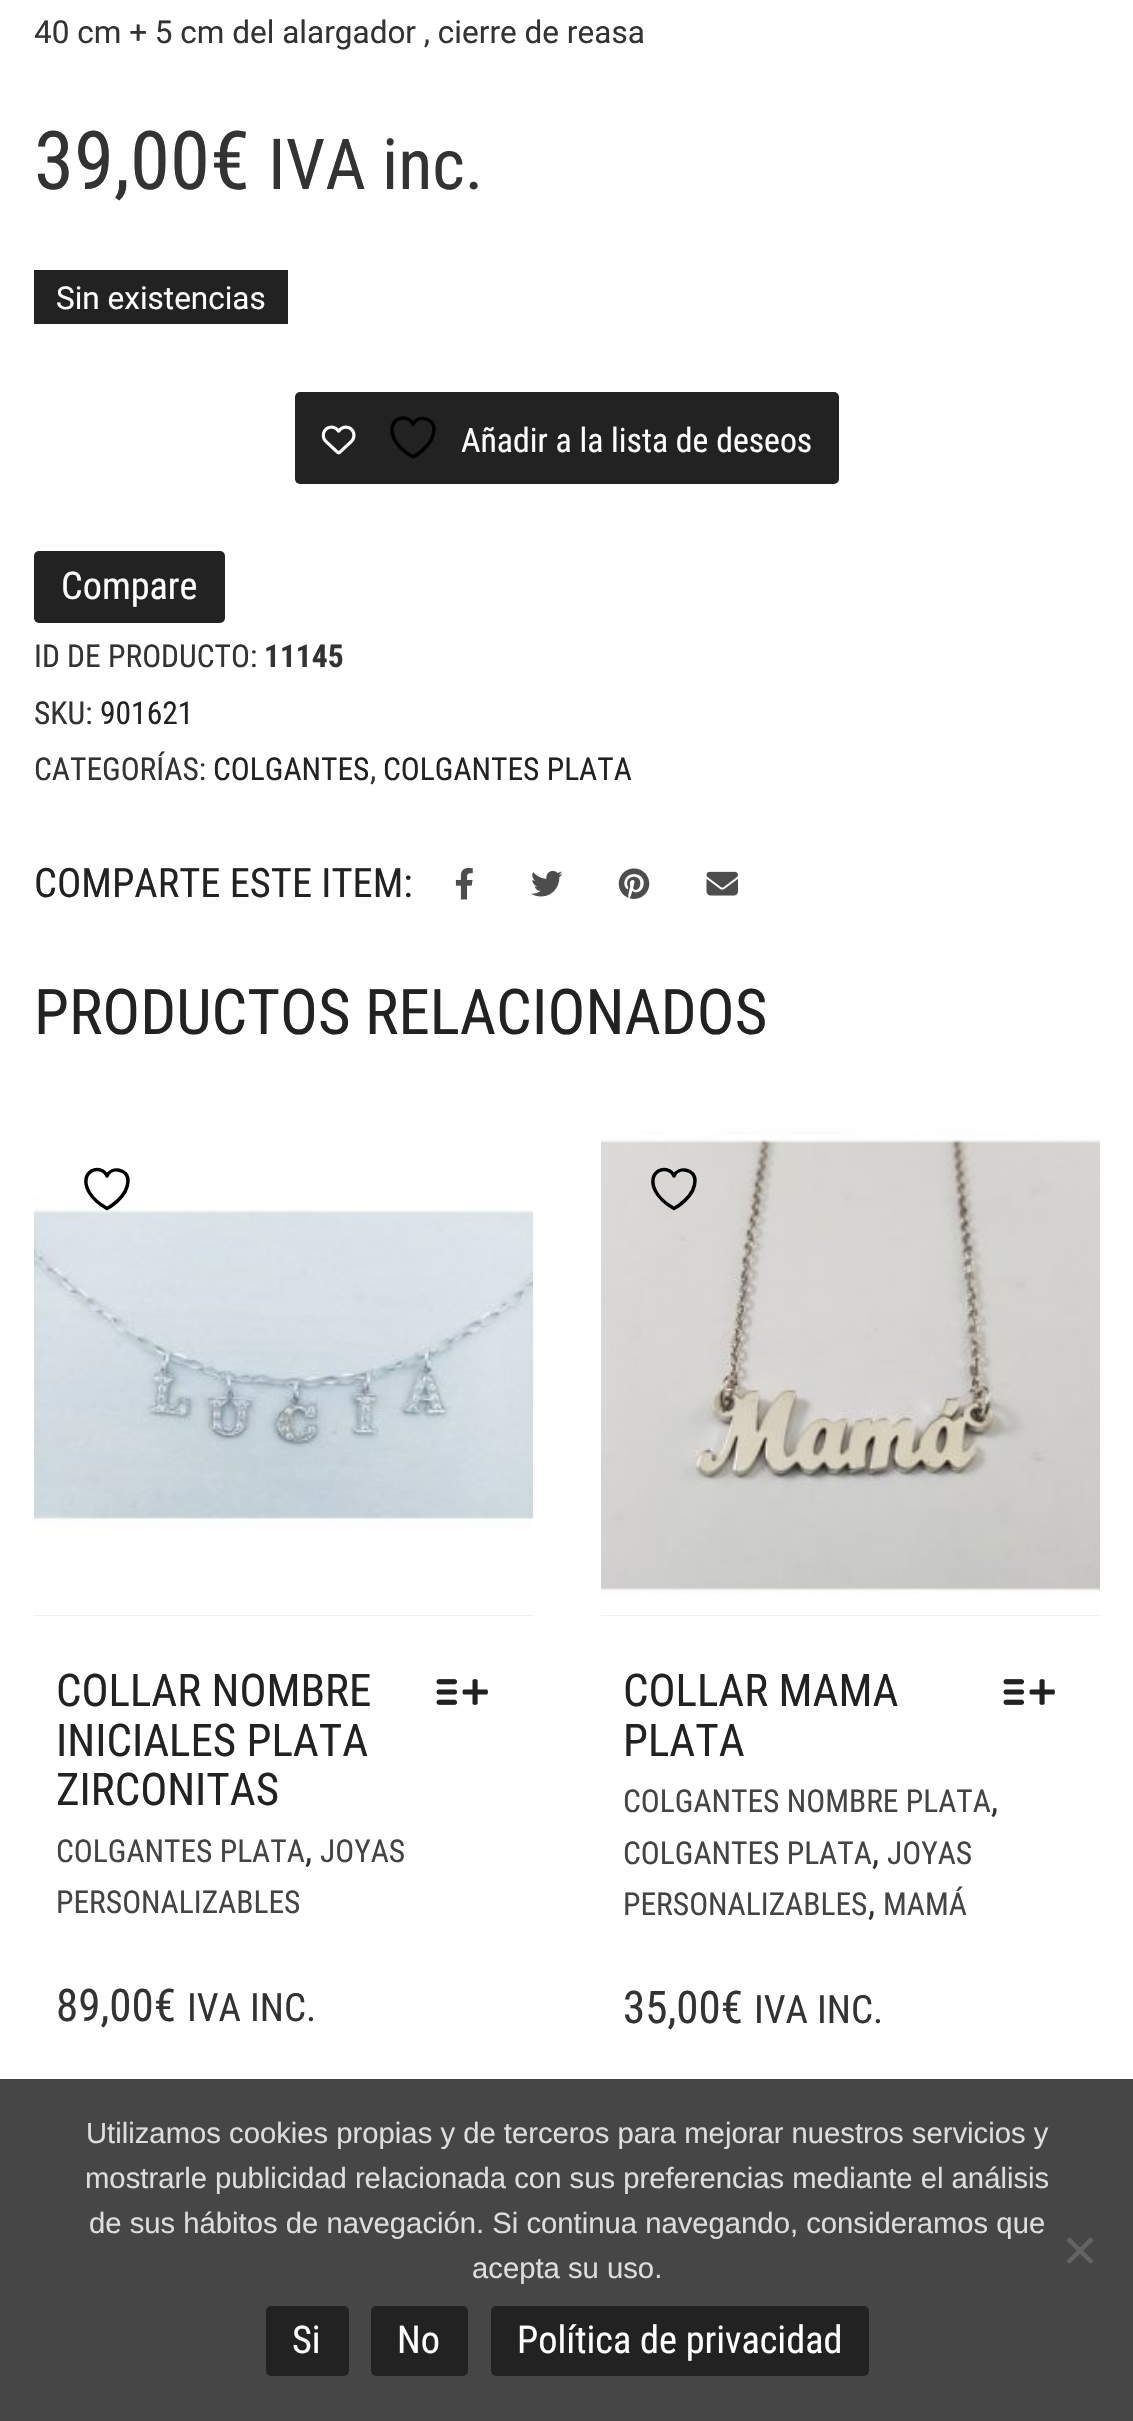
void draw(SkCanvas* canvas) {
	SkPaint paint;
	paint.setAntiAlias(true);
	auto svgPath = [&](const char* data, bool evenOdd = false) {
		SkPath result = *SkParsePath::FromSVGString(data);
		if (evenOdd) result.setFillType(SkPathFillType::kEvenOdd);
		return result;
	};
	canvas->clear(0xffffffff);
	SkFont f1(fontMgr->matchFamilyStyle("Roboto", SkFontStyle::Normal()), 31.5);
	f1.setSubpixel(true);
	paint.setColor(0xff333333);
	canvas->drawString("40 cm + 5 cm del alargador , cierre de reasa", 34, 43, f1, paint);
	SkFont f2(fontMgr->matchFamilyStyle("Roboto Condensed", SkFontStyle::Normal()), 81);
	f2.setSubpixel(true);
	canvas->drawString("39,00€", 34, 189, f2, paint);
	SkFont f3(fontMgr->matchFamilyStyle("Roboto Condensed", SkFontStyle::Normal()), 70.5);
	f3.setSubpixel(true);
	canvas->drawString("IVA inc.", 268, 189, f3, paint);
	paint.setColor(0xff222222);
	canvas->drawRect(SkRect::MakeXYWH(34, 270, 254, 54), paint);
	paint.setColor(0xffffffff);
	canvas->drawString("Sin existencias", 56, 309, f1, paint);
	paint.setColor(0xff222222);
	canvas->drawRoundRect(SkRect::MakeXYWH(295, 392, 544, 92), 5, 5, paint);
	canvas->drawImageRect(SkImages::DeferredFromEncodedData(SkData::MakeFromFileName("img1.png")), SkRect::MakeXYWH(321, 425, 35, 30), SkSamplingOptions());
	paint.setStroke(true);
	paint.setStrokeWidth(3.5);
	paint.setStrokeCap(SkPaint::kRound_Cap);
	paint.setStrokeJoin(SkPaint::kRound_Join);
	paint.setColor(0xff000000);
	canvas->drawPath(svgPath("M434 429C434 417.5 417.5 414.5 413 424.5C407 411 383.5 419.5 395 440.5C399 447.5 406 453 413 457C413 457 434 446 434 429Z"), paint);
	SkFont f4(fontMgr->matchFamilyStyle("Roboto Condensed", SkFontStyle::Normal()), 33.75);
	f4.setSubpixel(true);
	paint.setStroke(false);
	paint.setColor(0xffffffff);
	canvas->drawString("Añadir a la lista de deseos", 461, 452, f4, paint);
	paint.setColor(0xff222222);
	canvas->drawRoundRect(SkRect::MakeXYWH(34, 551, 191, 72), 5, 5, paint);
	SkFont f5(fontMgr->matchFamilyStyle("Roboto Condensed", SkFontStyle::Normal()), 38.25);
	f5.setSubpixel(true);
	paint.setColor(0xffffffff);
	canvas->drawString("Compare", 61, 599, f5, paint);
	SkFont f6(fontMgr->matchFamilyStyle("Roboto Condensed", SkFontStyle::Normal()), 31.5);
	f6.setSubpixel(true);
	paint.setColor(0xff333333);
	canvas->drawString("ID DE PRODUCTO:", 34, 667, f6, paint);
	SkFont f7(fontMgr->matchFamilyStyle("Roboto Condensed", SkFontStyle::Bold()), 31.5);
	f7.setSubpixel(true);
	canvas->drawString("11145", 264, 667, f7, paint);
	canvas->drawString("SKU:", 34, 724, f6, paint);
	paint.setColor(0xff222222);
	canvas->drawString("901621", 100, 724, f6, paint);
	paint.setColor(0xff333333);
	canvas->drawString("CATEGORÍAS:", 34, 780, f6, paint);
	paint.setColor(0xff222222);
	canvas->drawString("COLGANTES", 213, 780, f6, paint);
	paint.setColor(0xff333333);
	canvas->drawString(",", 370, 780, f6, paint);
	paint.setColor(0xff222222);
	canvas->drawString("COLGANTES PLATA", 383, 780, f6, paint);
	SkFont f8(fontMgr->matchFamilyStyle("Roboto Condensed", SkFontStyle::Normal()), 40.5);
	f8.setSubpixel(true);
	canvas->drawString("COMPARTE ESTE ITEM:", 34, 897, f8, paint);
	canvas->drawImageRect(SkImages::DeferredFromEncodedData(SkData::MakeFromFileName("img2.png")), SkRect::MakeXYWH(455, 867, 18, 33), SkSamplingOptions());
	canvas->drawImageRect(SkImages::DeferredFromEncodedData(SkData::MakeFromFileName("img3.png")), SkRect::MakeXYWH(531, 870, 32, 27), SkSamplingOptions());
	canvas->drawImageRect(SkImages::DeferredFromEncodedData(SkData::MakeFromFileName("img4.png")), SkRect::MakeXYWH(618, 868, 32, 31), SkSamplingOptions());
	canvas->drawImageRect(SkImages::DeferredFromEncodedData(SkData::MakeFromFileName("img5.png")), SkRect::MakeXYWH(706, 871, 32, 25), SkSamplingOptions());
	SkFont f9(fontMgr->matchFamilyStyle("Roboto Condensed", SkFontStyle::Normal()), 63);
	f9.setSubpixel(true);
	canvas->drawString("PRODUCTOS RELACIONADOS", 34, 1034, f9, paint);
	paint.setColor(0xfff0f0f0);
	canvas->drawRect(SkRect::MakeXYWH(34, 1615, 499, 1), paint);
	canvas->drawImageRect(SkImages::DeferredFromEncodedData(SkData::MakeFromFileName("img6.png")), SkRect::MakeXYWH(34, 1116, 500, 499), SkSamplingOptions());
	paint.setStroke(true);
	paint.setColor(0xff000000);
	canvas->drawPath(svgPath("M128 1180.5C128 1169 111.5 1166 107 1176C101 1162.5 77.5 1171 89 1192C93 1199 100 1204.5 107 1208.5C107 1208.5 128 1197.5 128 1180.5Z"), paint);
	SkFont f10(fontMgr->matchFamilyStyle("Roboto Condensed", SkFontStyle::Normal()), 45);
	f10.setSubpixel(true);
	paint.setStroke(false);
	paint.setColor(0xff222222);
	canvas->drawString("COLLAR NOMBRE", 56, 1706, f10, paint);
	canvas->drawString("INICIALES PLATA", 56, 1756, f10, paint);
	canvas->drawString("ZIRCONITAS", 56, 1805, f10, paint);
	canvas->drawImageRect(SkImages::DeferredFromEncodedData(SkData::MakeFromFileName("img7.png")), SkRect::MakeXYWH(436, 1679, 52, 26), SkSamplingOptions());
	paint.setColor(0xff444444);
	canvas->drawString("COLGANTES PLATA", 56, 1862, f6, paint);
	SkFont f11(fontMgr->matchFamilyStyle("Roboto Condensed", SkFontStyle::Normal()), 36);
	f11.setSubpixel(true);
	paint.setColor(0xff333333);
	canvas->drawString(",", 305, 1862, f11, paint);
	paint.setColor(0xff444444);
	canvas->drawString("JOYAS", 320, 1862, f6, paint);
	canvas->drawString("PERSONALIZABLES", 56, 1913, f6, paint);
	paint.setColor(0xff333333);
	canvas->drawString("89,00€", 56, 2021, f10, paint);
	SkFont f12(fontMgr->matchFamilyStyle("Roboto Condensed", SkFontStyle::Normal()), 39);
	f12.setSubpixel(true);
	canvas->drawString("IVA INC.", 187, 2021, f12, paint);
	paint.setColor(0xfff0f0f0);
	canvas->drawRect(SkRect::MakeXYWH(601, 1615, 499, 1), paint);
	canvas->drawImageRect(SkImages::DeferredFromEncodedData(SkData::MakeFromFileName("img8.png")), SkRect::MakeXYWH(601, 1116, 500, 499), SkSamplingOptions());
	paint.setStroke(true);
	paint.setColor(0xff000000);
	canvas->drawPath(svgPath("M695 1180.5C695 1169 678.5 1166 674 1176C668 1162.5 644.5 1171 656 1192C660 1199 667 1204.5 674 1208.5C674 1208.5 695 1197.5 695 1180.5Z"), paint);
	paint.setStroke(false);
	paint.setColor(0xff222222);
	canvas->drawString("COLLAR MAMA", 623, 1706, f10, paint);
	canvas->drawString("PLATA", 623, 1756, f10, paint);
	canvas->drawImageRect(SkImages::DeferredFromEncodedData(SkData::MakeFromFileName("img7.png")), SkRect::MakeXYWH(1003, 1679, 52, 26), SkSamplingOptions());
	paint.setColor(0xff444444);
	canvas->drawString("COLGANTES NOMBRE PLATA", 623, 1812, f6, paint);
	paint.setColor(0xff333333);
	canvas->drawString(",", 991, 1812, f11, paint);
	paint.setColor(0xff444444);
	canvas->drawString("COLGANTES PLATA", 623, 1864, f6, paint);
	paint.setColor(0xff333333);
	canvas->drawString(",", 872, 1864, f11, paint);
	paint.setColor(0xff444444);
	canvas->drawString("JOYAS", 887, 1864, f6, paint);
	canvas->drawString("PERSONALIZABLES", 623, 1915, f6, paint);
	paint.setColor(0xff333333);
	canvas->drawString(",", 868, 1915, f11, paint);
	paint.setColor(0xff444444);
	canvas->drawString("MAMÁ", 883, 1915, f6, paint);
	paint.setColor(0xff333333);
	canvas->drawString("35,00€", 623, 2023, f10, paint);
	canvas->drawString("IVA INC.", 754, 2023, f12, paint);
	paint.setColor(0xff464646);
	canvas->drawRect(SkRect::MakeXYWH(0, 2079, 1133, 342), paint);
	SkFont f13(fontMgr->matchFamilyStyle("Liberation Sans", SkFontStyle::Normal()), 29.25);
	f13.setSubpixel(true);
	paint.setColor(0xffdddddd);
	canvas->drawString("Utilizamos cookies propias y de terceros para mejorar nuestros servicios y", 86, 2143, f13, paint);
	canvas->drawString("mostrarle publicidad relacionada con sus preferencias mediante el análisis", 85, 2188, f13, paint);
	canvas->drawString("de sus hábitos de navegación. Si continua navegando, consideramos que", 89, 2233, f13, paint);
	canvas->drawString("acepta su uso.", 472, 2278, f13, paint);
	paint.setColor(0xff636363);
	canvas->drawPath(svgPath("M1090.5 2237L1093.5 2240.5L1069.5 2264L1066.5 2261Z"), paint);
	canvas->drawPath(svgPath("M1066.5 2240.5L1069.5 2237L1093.5 2261L1090.5 2264Z"), paint);
	paint.setColor(0xff222222);
	canvas->drawRoundRect(SkRect::MakeXYWH(266, 2306, 83, 70), 5, 5, paint);
	paint.setColor(0xffffffff);
	canvas->drawString("Si", 292, 2353, f5, paint);
	paint.setColor(0xff222222);
	canvas->drawRoundRect(SkRect::MakeXYWH(371, 2306, 97, 70), 5, 5, paint);
	paint.setColor(0xffffffff);
	canvas->drawString("No", 397, 2353, f5, paint);
	paint.setColor(0xff222222);
	canvas->drawRoundRect(SkRect::MakeXYWH(491, 2306, 378, 70), 5, 5, paint);
	paint.setColor(0xffffffff);
	canvas->drawString("Política de privacidad", 517, 2353, f5, paint);
}
